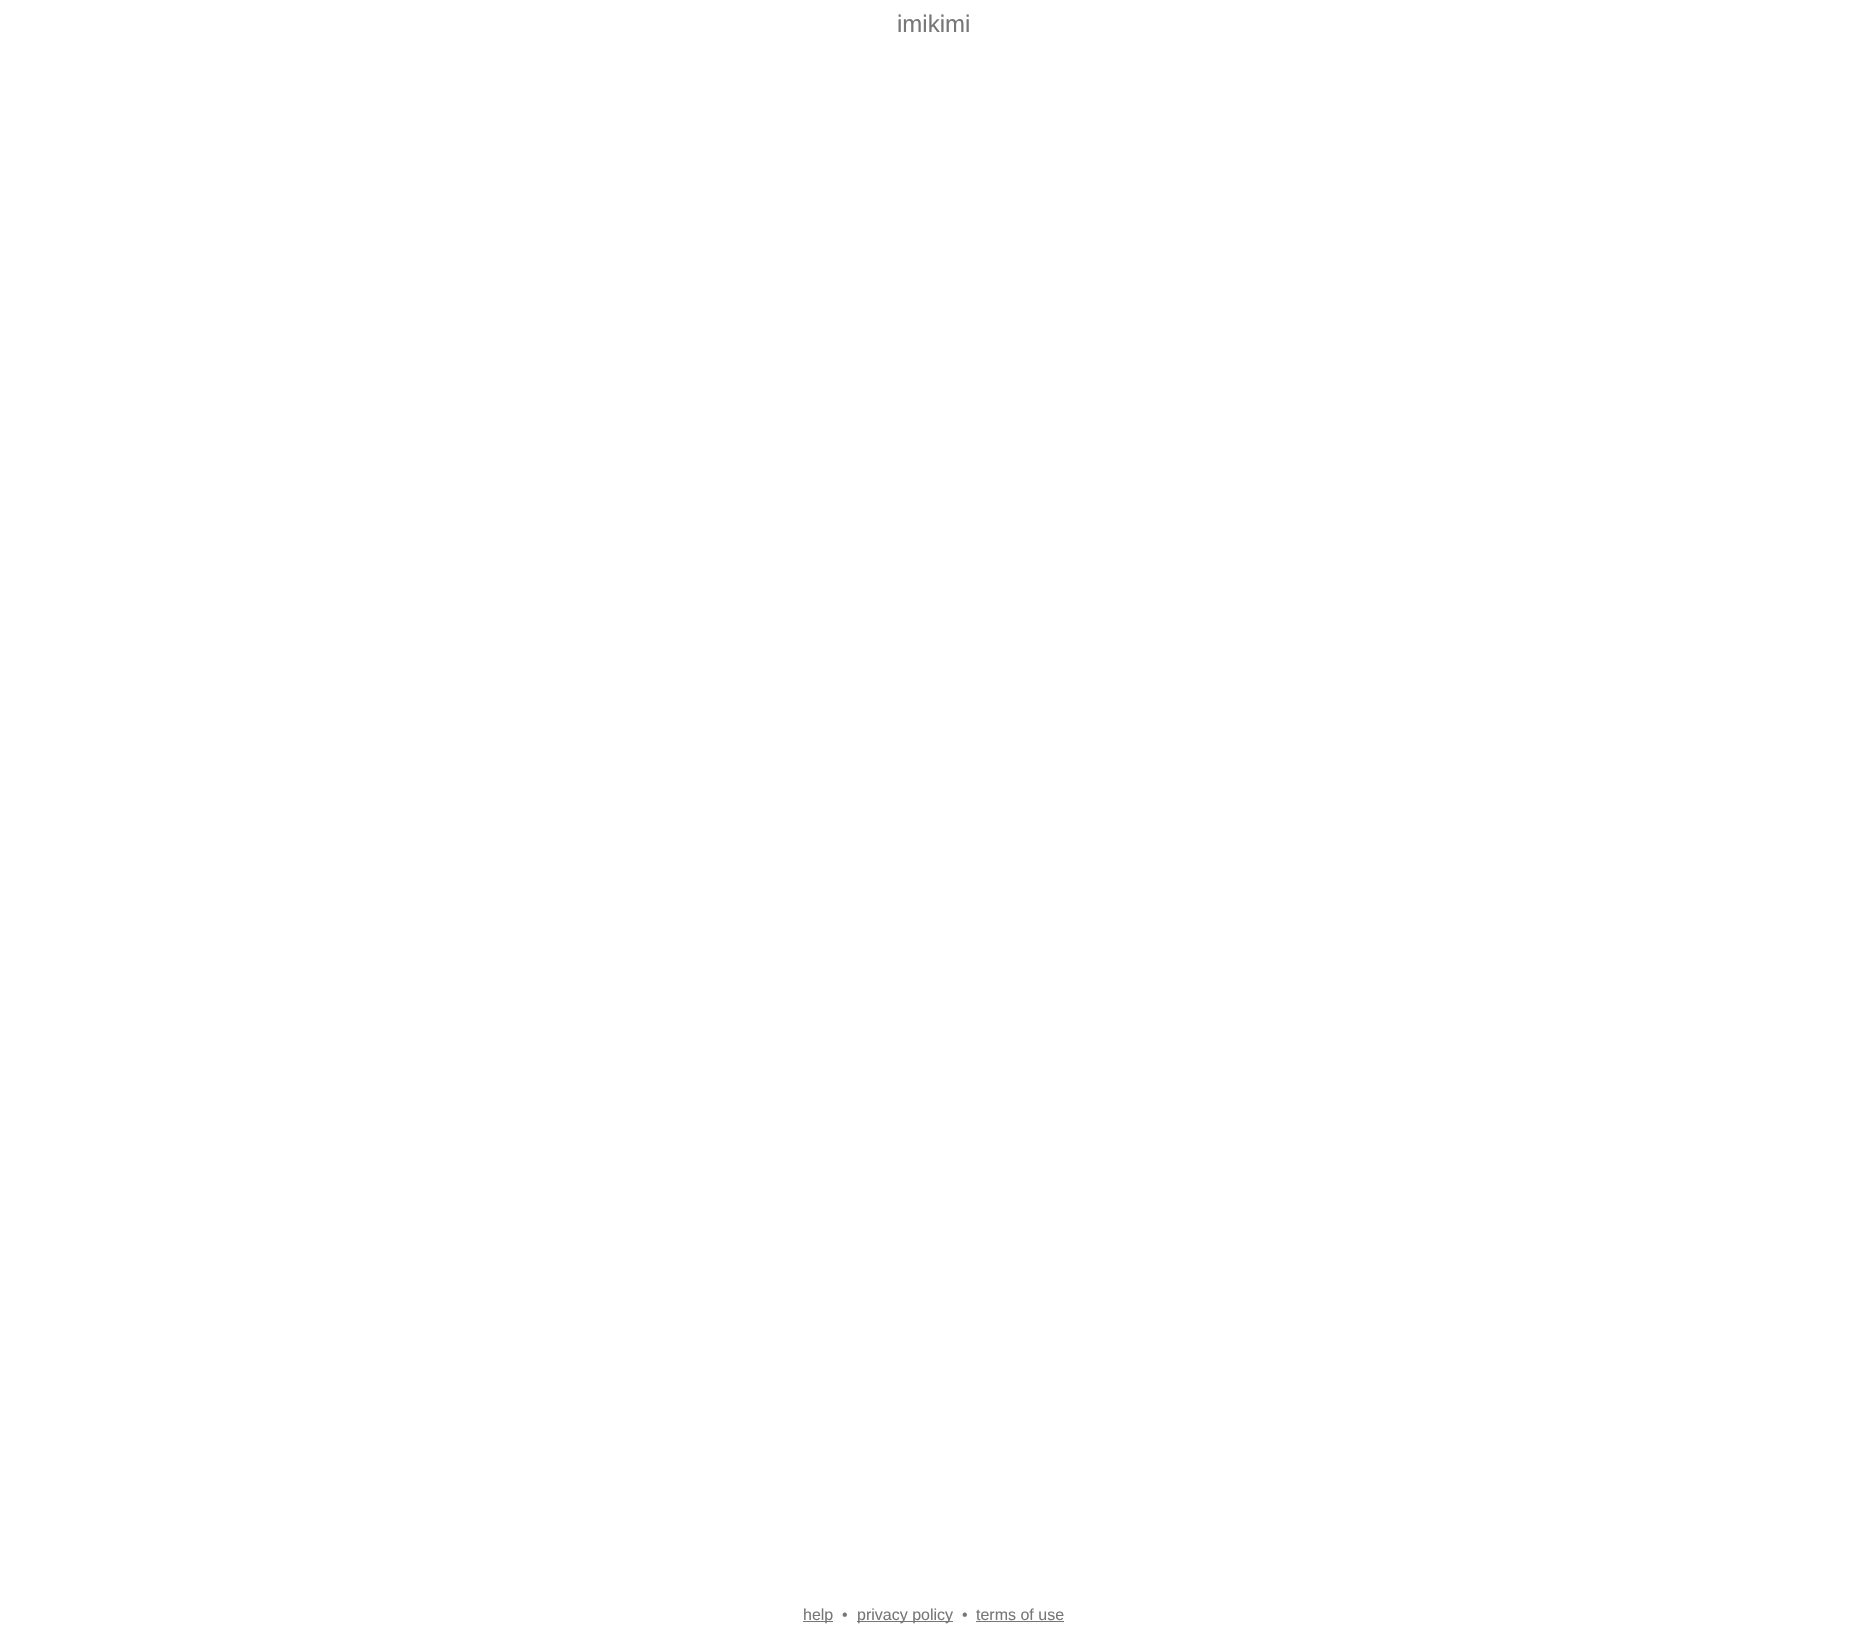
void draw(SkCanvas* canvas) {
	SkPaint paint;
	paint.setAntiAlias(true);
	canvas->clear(0xffffffff);
	SkFont f1(fontMgr->matchFamilyStyle("Liberation Sans", SkFontStyle::Normal()), 24);
	f1.setSubpixel(true);
	paint.setColor(0xff777777);
	canvas->drawString("imikimi", 897, 32, f1, paint);
	canvas->drawRect(SkRect::MakeXYWH(803, 1621, 30, 1), paint);
	SkFont f2(fontMgr->matchFamilyStyle("Liberation Sans", SkFontStyle::Normal()), 16);
	f2.setSubpixel(true);
	canvas->drawString("help", 803, 1620, f2, paint);
	canvas->drawString("•", 842, 1620, f2, paint);
	canvas->drawRect(SkRect::MakeXYWH(857, 1621, 96, 1), paint);
	canvas->drawString("privacy policy", 857, 1620, f2, paint);
	canvas->drawString("•", 962, 1620, f2, paint);
	canvas->drawString("terms of use", 976, 1620, f2, paint);
	canvas->drawRect(SkRect::MakeXYWH(976, 1621, 88, 1), paint);
}
